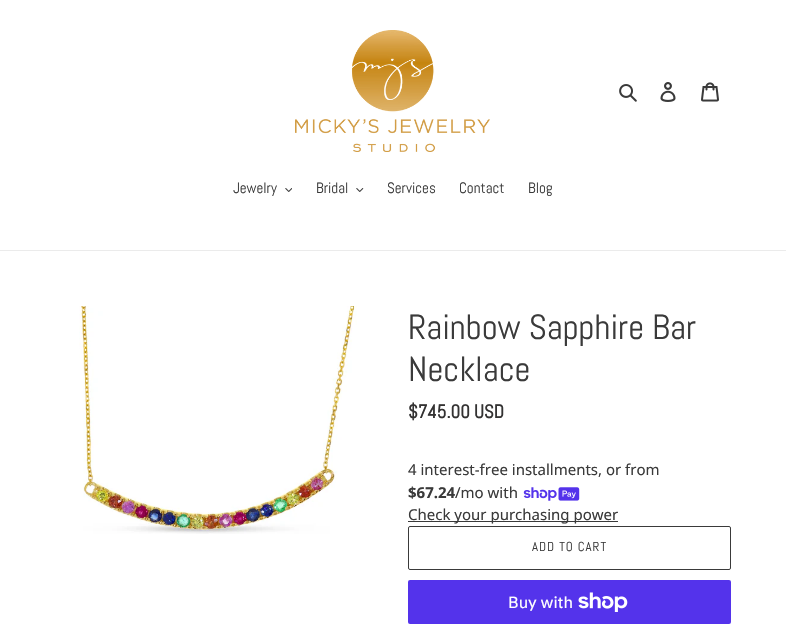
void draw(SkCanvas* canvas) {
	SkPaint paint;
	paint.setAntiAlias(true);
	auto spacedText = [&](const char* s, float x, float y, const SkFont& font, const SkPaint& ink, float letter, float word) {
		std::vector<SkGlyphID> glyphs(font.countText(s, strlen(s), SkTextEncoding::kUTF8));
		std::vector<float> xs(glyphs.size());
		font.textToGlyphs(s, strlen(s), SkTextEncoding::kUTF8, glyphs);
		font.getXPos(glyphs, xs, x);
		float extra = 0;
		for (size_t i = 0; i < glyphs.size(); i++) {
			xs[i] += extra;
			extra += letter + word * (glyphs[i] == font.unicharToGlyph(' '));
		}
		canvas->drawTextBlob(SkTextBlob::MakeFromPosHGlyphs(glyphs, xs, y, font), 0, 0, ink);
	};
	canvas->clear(0xffffffff);
	canvas->drawImageRect(SkImages::DeferredFromEncodedData(SkData::MakeFromFileName("img1.png")), SkRect::MakeXYWH(295, 30, 195, 122), SkSamplingOptions());
	canvas->drawImageRect(SkImages::DeferredFromEncodedData(SkData::MakeFromFileName("img2.png")), SkRect::MakeXYWH(619, 84, 18, 18), SkSamplingOptions());
	canvas->drawImageRect(SkImages::DeferredFromEncodedData(SkData::MakeFromFileName("img3.png")), SkRect::MakeXYWH(660, 82, 16, 20), SkSamplingOptions());
	canvas->drawImageRect(SkImages::DeferredFromEncodedData(SkData::MakeFromFileName("img4.png")), SkRect::MakeXYWH(701, 82, 18, 20), SkSamplingOptions());
	paint.setColor(0xffebebeb);
	canvas->drawRect(SkRect::MakeXYWH(0, 250, 786, 1), paint);
	SkFont f1(fontMgr->matchFamilyStyle("Abel", SkFontStyle::Normal()), 15);
	f1.setSubpixel(true);
	paint.setColor(0xff3a3a3a);
	canvas->drawString("Jewelry", 233, 193, f1, paint);
	canvas->drawImageRect(SkImages::DeferredFromEncodedData(SkData::MakeFromFileName("img5.png")), SkRect::MakeXYWH(285, 188, 7, 4), SkSamplingOptions());
	canvas->drawString("Bridal", 316, 193, f1, paint);
	canvas->drawImageRect(SkImages::DeferredFromEncodedData(SkData::MakeFromFileName("img6.png")), SkRect::MakeXYWH(356, 188, 8, 4), SkSamplingOptions());
	canvas->drawString("Services", 387, 193, f1, paint);
	canvas->drawString("Contact", 459, 193, f1, paint);
	canvas->drawString("Blog", 528, 193, f1, paint);
	canvas->drawImageRect(SkImages::DeferredFromEncodedData(SkData::MakeFromFileName("img7.png")), SkRect::MakeXYWH(79, 306, 278, 228), SkSamplingOptions());
	SkFont f2(fontMgr->matchFamilyStyle("Abel", SkFontStyle::Normal()), 35);
	f2.setSubpixel(true);
	canvas->drawString("Rainbow Sapphire Bar", 408, 339, f2, paint);
	canvas->drawString("Necklace", 408, 381, f2, paint);
	SkFont f3(fontMgr->matchFamilyStyle("Abel", SkFontStyle::Bold()), 18.75);
	f3.setSubpixel(true);
	paint.setColor(0xff333232);
	canvas->drawString("$745.00 USD", 408, 418, f3, paint);
	SkFont f4(fontMgr->matchFamilyStyle("Noto Sans", SkFontStyle::Normal()), 15);
	f4.setSubpixel(true);
	paint.setColor(0xff3a3a3a);
	canvas->drawString("4 interest-free installments, or from", 408, 475, f4, paint);
	SkFont f5(fontMgr->matchFamilyStyle("Noto Sans", SkFontStyle::Bold()), 15);
	f5.setSubpixel(true);
	canvas->drawString("$67.24", 408, 498, f5, paint);
	canvas->drawString("/mo with", 455, 498, f4, paint);
	canvas->drawImageRect(SkImages::DeferredFromEncodedData(SkData::MakeFromFileName("img8.png")), SkRect::MakeXYWH(523, 487, 57, 14), SkSamplingOptions());
	canvas->drawRect(SkRect::MakeXYWH(408, 521, 210, 1), paint);
	canvas->drawString("Check your purchasing power", 408, 520, f4, paint);
	paint.setStroke(true);
	paint.setStrokeWidth(1);
	canvas->drawRoundRect(SkRect::MakeXYWH(408.5, 526.5, 322, 43), 1.5, 1.5, paint);
	SkFont f6(fontMgr->matchFamilyStyle("Abel", SkFontStyle::Normal()), 13);
	f6.setSubpixel(true);
	paint.setStroke(false);
	spacedText("ADD TO CART", 532, 551, f6, paint, 1, 0);
	paint.setColor(0xff5433eb);
	canvas->drawRoundRect(SkRect::MakeXYWH(408, 580, 323, 44), 2, 2, paint);
	SkFont f7(fontMgr->matchFamilyStyle("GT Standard", SkFontStyle::Normal()), 16);
	f7.setSubpixel(true);
	paint.setColor(0xffffffff);
	canvas->drawString("Buy with", 508, 608, f7, paint);
	canvas->drawImageRect(SkImages::DeferredFromEncodedData(SkData::MakeFromFileName("img9.png")), SkRect::MakeXYWH(578, 592, 50, 20), SkSamplingOptions());
}
